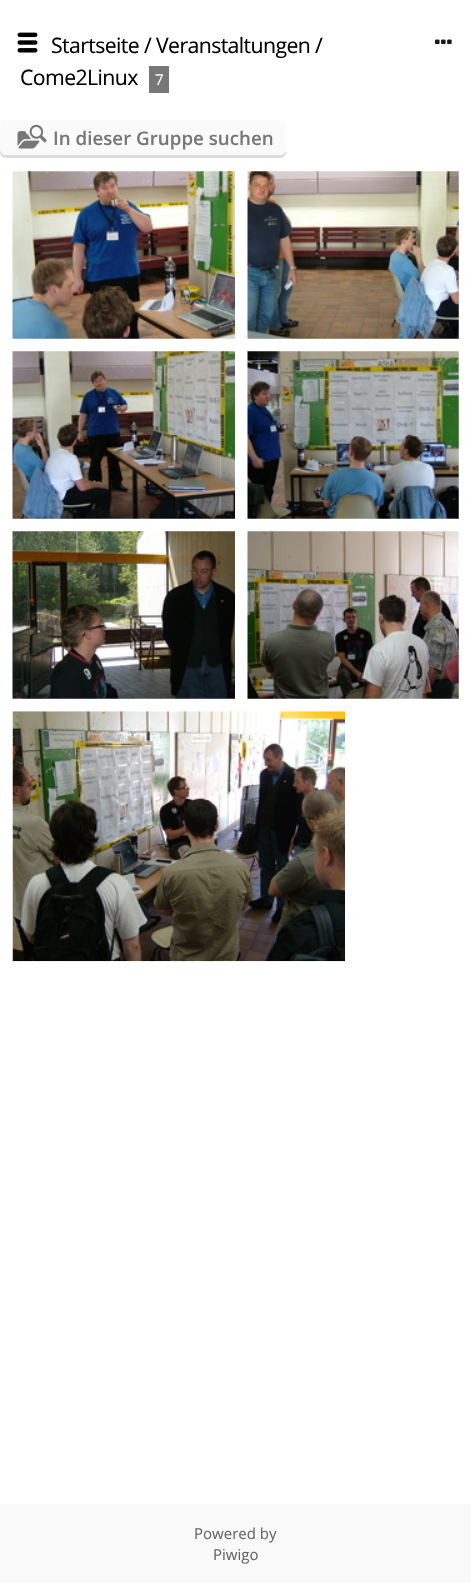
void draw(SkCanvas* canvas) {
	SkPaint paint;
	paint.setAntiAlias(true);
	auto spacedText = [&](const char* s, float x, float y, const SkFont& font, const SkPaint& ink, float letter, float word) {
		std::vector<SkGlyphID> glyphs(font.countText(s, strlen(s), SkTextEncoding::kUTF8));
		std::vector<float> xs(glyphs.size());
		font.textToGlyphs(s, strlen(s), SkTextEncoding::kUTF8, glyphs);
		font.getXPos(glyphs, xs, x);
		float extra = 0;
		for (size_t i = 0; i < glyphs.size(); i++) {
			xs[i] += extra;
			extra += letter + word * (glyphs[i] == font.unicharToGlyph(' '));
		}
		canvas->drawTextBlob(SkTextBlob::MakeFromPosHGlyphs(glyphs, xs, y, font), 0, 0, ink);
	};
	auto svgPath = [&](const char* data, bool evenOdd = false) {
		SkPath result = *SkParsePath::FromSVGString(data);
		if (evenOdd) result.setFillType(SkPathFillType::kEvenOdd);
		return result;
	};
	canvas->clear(0xffffffff);
	canvas->drawImageRect(SkImages::DeferredFromEncodedData(SkData::MakeFromFileName("img1.png")), SkRect::MakeXYWH(17, 32, 21, 21), SkSamplingOptions());
	SkFont f1(fontMgr->matchFamilyStyle("Open Sans", SkFontStyle::Normal()), 21.25);
	f1.setSubpixel(true);
	paint.setColor(0xff000000);
	spacedText("Startseite / Veranstaltungen /", 51, 53, f1, paint, -0.6, 0);
	spacedText("Come2Linux", 20, 85, f1, paint, -0.6, 0);
	paint.setColor(0xff777777);
	canvas->drawRect(SkRect::MakeXYWH(149, 66, 20, 27), paint);
	SkFont f2(fontMgr->matchFamilyStyle("Open Sans", SkFontStyle::Normal()), 15);
	f2.setSubpixel(true);
	paint.setColor(0xffffffff);
	spacedText("7", 155, 85, f2, paint, -0.6, 0);
	canvas->drawImageRect(SkImages::DeferredFromEncodedData(SkData::MakeFromFileName("img2.png")), SkRect::MakeXYWH(435, 39, 17, 6), SkSamplingOptions());
	paint.setColor(0xffdbdbdb);
	canvas->drawPath(svgPath("M0 149V152C0 155 3 158 6 158H280C283 158 286 155 286 152V151C285 153 283 155 280 155H6C3 155 0 152 0 149Z"), paint);
	paint.setColor(0xfffafafa);
	canvas->drawRoundRect(SkRect::MakeXYWH(0, 120, 286, 35), 6, 6, paint);
	canvas->drawImageRect(SkImages::DeferredFromEncodedData(SkData::MakeFromFileName("img3.png")), SkRect::MakeXYWH(17, 124, 30, 25), SkSamplingOptions());
	SkFont f3(fontMgr->matchFamilyStyle("Open Sans", SkFontStyle(600, SkFontStyle::kNormal_Width, SkFontStyle::kUpright_Slant)), 18.75);
	f3.setSubpixel(true);
	paint.setColor(0xff777777);
	canvas->drawString("In dieser Gruppe suchen", 53, 145, f3, paint);
	canvas->drawImageRect(SkImages::DeferredFromEncodedData(SkData::MakeFromFileName("img4.png")), SkRect::MakeXYWH(12, 171, 223, 168), SkSamplingOptions());
	canvas->drawImageRect(SkImages::DeferredFromEncodedData(SkData::MakeFromFileName("img5.png")), SkRect::MakeXYWH(247, 171, 212, 168), SkSamplingOptions());
	canvas->drawImageRect(SkImages::DeferredFromEncodedData(SkData::MakeFromFileName("img6.png")), SkRect::MakeXYWH(12, 351, 223, 168), SkSamplingOptions());
	canvas->drawImageRect(SkImages::DeferredFromEncodedData(SkData::MakeFromFileName("img7.png")), SkRect::MakeXYWH(247, 351, 212, 168), SkSamplingOptions());
	canvas->drawImageRect(SkImages::DeferredFromEncodedData(SkData::MakeFromFileName("img8.png")), SkRect::MakeXYWH(12, 531, 223, 168), SkSamplingOptions());
	canvas->drawImageRect(SkImages::DeferredFromEncodedData(SkData::MakeFromFileName("img9.png")), SkRect::MakeXYWH(247, 531, 212, 168), SkSamplingOptions());
	canvas->drawImageRect(SkImages::DeferredFromEncodedData(SkData::MakeFromFileName("img10.png")), SkRect::MakeXYWH(12, 711, 333, 251), SkSamplingOptions());
	paint.setColor(0xfff9f9f9);
	canvas->drawRect(SkRect::MakeXYWH(0, 1504, 471, 79), paint);
	paint.setColor(0xff666666);
	canvas->drawString("Powered by", 194, 1539, f2, paint);
	canvas->drawString("Piwigo", 213, 1560, f2, paint);
}
